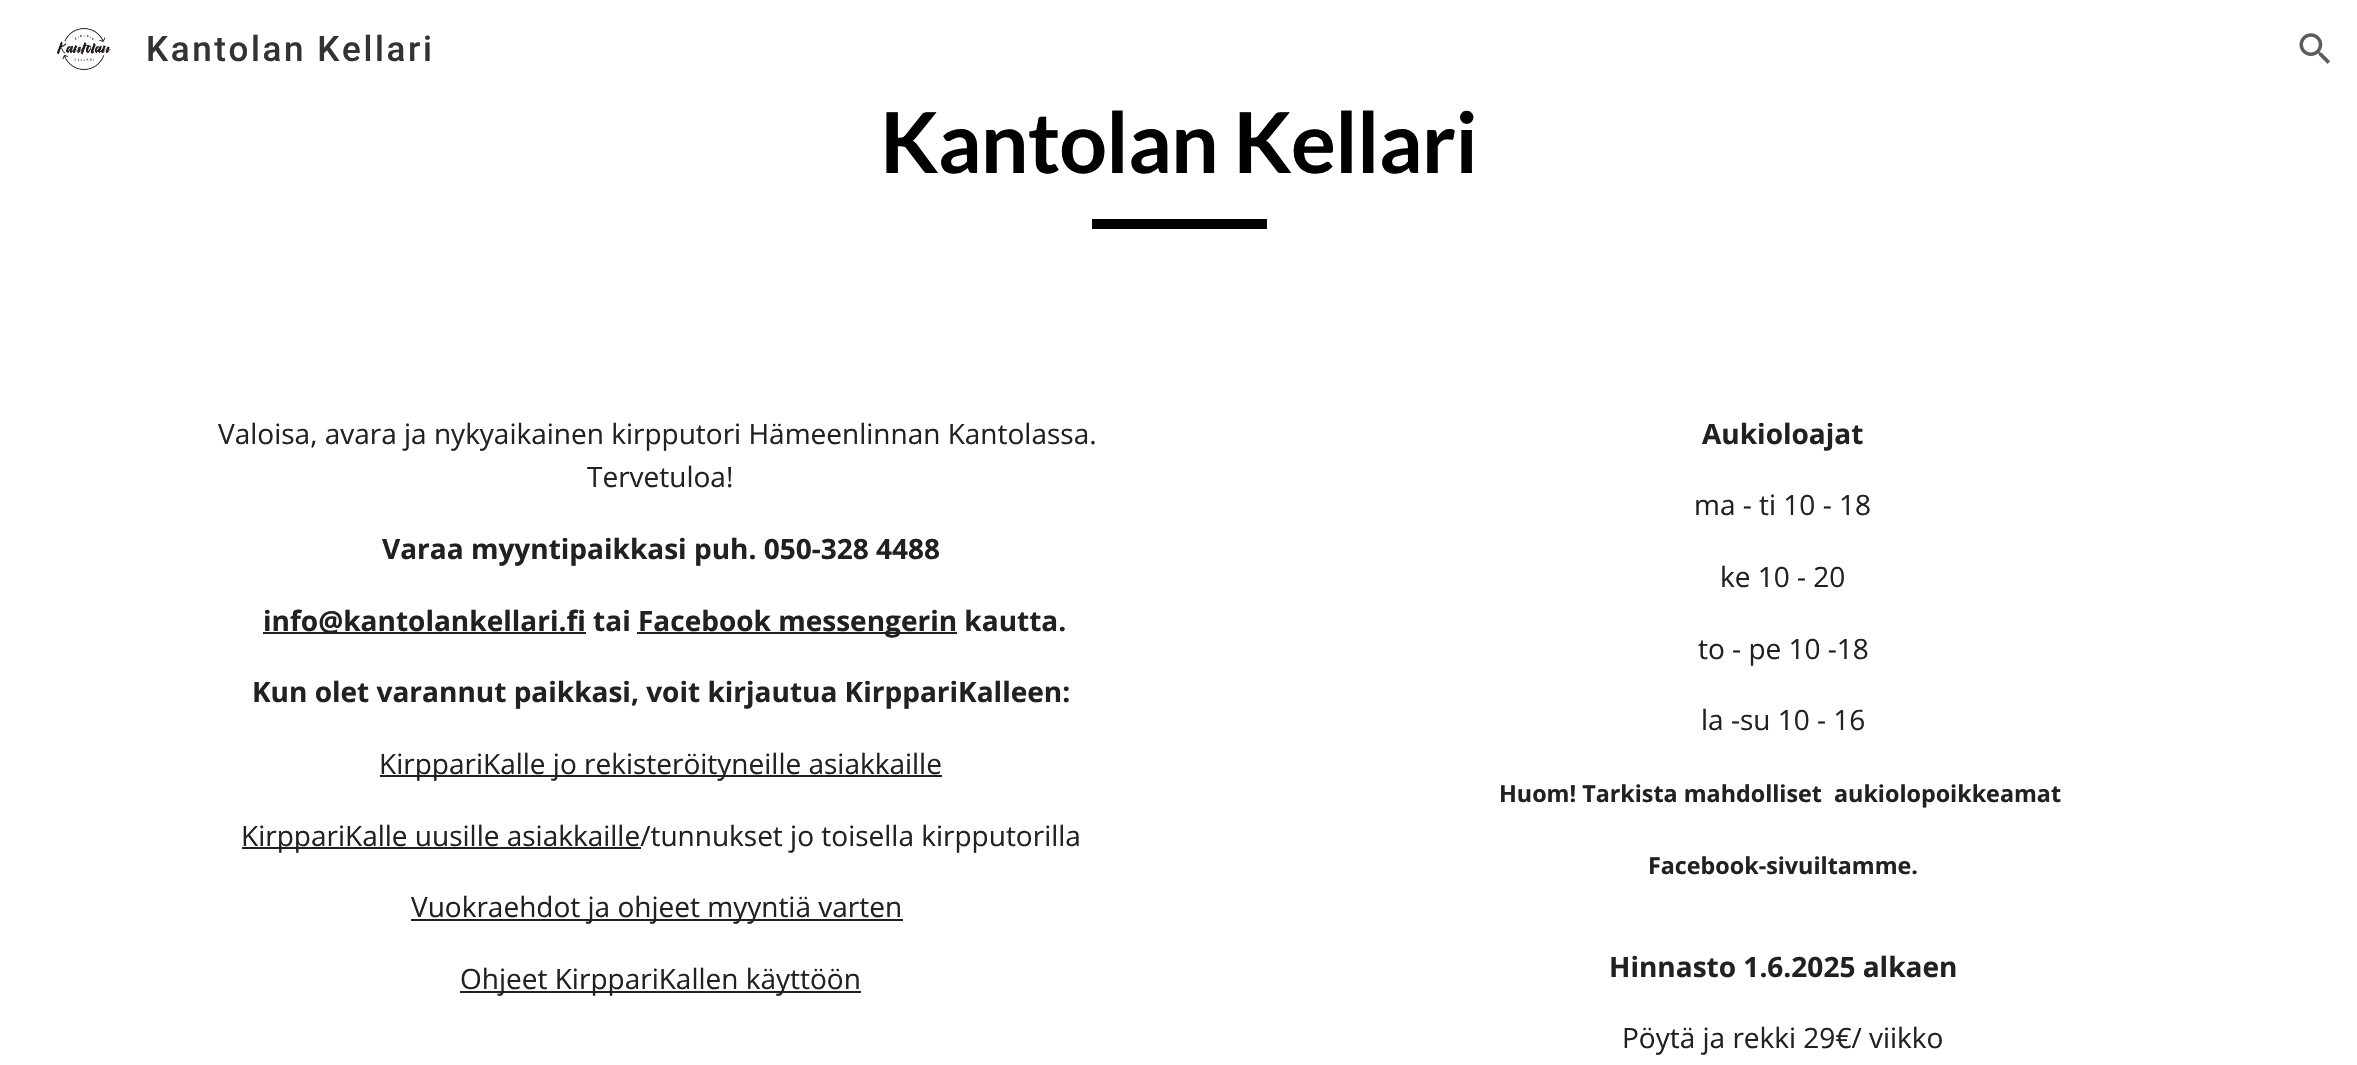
void draw(SkCanvas* canvas) {
	SkPaint paint;
	paint.setAntiAlias(true);
	auto spacedText = [&](const char* s, float x, float y, const SkFont& font, const SkPaint& ink, float letter, float word) {
		std::vector<SkGlyphID> glyphs(font.countText(s, strlen(s), SkTextEncoding::kUTF8));
		std::vector<float> xs(glyphs.size());
		font.textToGlyphs(s, strlen(s), SkTextEncoding::kUTF8, glyphs);
		font.getXPos(glyphs, xs, x);
		float extra = 0;
		for (size_t i = 0; i < glyphs.size(); i++) {
			xs[i] += extra;
			extra += letter + word * (glyphs[i] == font.unicharToGlyph(' '));
		}
		canvas->drawTextBlob(SkTextBlob::MakeFromPosHGlyphs(glyphs, xs, y, font), 0, 0, ink);
	};
	canvas->clear(0xffffffff);
	canvas->drawImageRect(SkImages::DeferredFromEncodedData(SkData::MakeFromFileName("img1.png")), SkRect::MakeXYWH(57, 28, 54, 42), SkSamplingOptions());
	SkFont f1(fontMgr->matchFamilyStyle("Roboto", SkFontStyle(500, SkFontStyle::kNormal_Width, SkFontStyle::kUpright_Slant)), 35);
	f1.setSubpixel(true);
	paint.setColor(0xff333333);
	spacedText("Kantolan Kellari", 146, 61, f1, paint, 2.6, 0);
	canvas->drawImageRect(SkImages::DeferredFromEncodedData(SkData::MakeFromFileName("img2.png")), SkRect::MakeXYWH(2299, 33, 31, 31), SkSamplingOptions());
	SkFont f2(fontMgr->matchFamilyStyle("Lato", SkFontStyle::Bold()), 84);
	f2.setSubpixel(true);
	paint.setColor(0xff000000);
	spacedText("Kantolan Kellari", 880, 173, f2, paint, -0.9, 0);
	canvas->drawRect(SkRect::MakeXYWH(1092, 219, 175, 10), paint);
	SkFont f3(fontMgr->matchFamilyStyle("Open Sans", SkFontStyle::Normal()), 28);
	f3.setSubpixel(true);
	paint.setColor(0xff212121);
	canvas->drawString("Valoisa, avara ja nykyaikainen kirpputori Hämeenlinnan Kantolassa.", 218, 444, f3, paint);
	canvas->drawString("Tervetuloa!", 587, 487, f3, paint);
	SkFont f4(fontMgr->matchFamilyStyle("Open Sans", SkFontStyle::Bold()), 28);
	f4.setSubpixel(true);
	canvas->drawString("Varaa myyntipaikkasi puh. 050-328 4488", 382, 559, f4, paint);
	canvas->drawRect(SkRect::MakeXYWH(263, 632, 323, 2), paint);
	canvas->drawString("info@kantolankellari.fi tai", 263, 631, f4, paint);
	canvas->drawRect(SkRect::MakeXYWH(637, 632, 320, 2), paint);
	canvas->drawString("Facebook messengerin kautta.", 638, 631, f4, paint);
	canvas->drawString("Kun olet varannut paikkasi, voit kirjautua KirppariKalleen:", 252, 702, f4, paint);
	canvas->drawRect(SkRect::MakeXYWH(380, 775, 562, 2), paint);
	canvas->drawString("KirppariKalle jo rekisteröityneille asiakkaille", 379, 774, f3, paint);
	canvas->drawRect(SkRect::MakeXYWH(242, 847, 399, 2), paint);
	canvas->drawString("KirppariKalle uusille asiakkaille/tunnukset jo toisella kirpputorilla", 241, 846, f3, paint);
	canvas->drawRect(SkRect::MakeXYWH(411, 919, 492, 2), paint);
	canvas->drawString("Vuokraehdot ja ohjeet myyntiä varten", 411, 917, f3, paint);
	canvas->drawRect(SkRect::MakeXYWH(460, 991, 401, 2), paint);
	canvas->drawString("Ohjeet KirppariKallen käyttöön", 460, 989, f3, paint);
	canvas->drawString("Aukioloajat", 1702, 444, f4, paint);
	canvas->drawString("ma - ti 10 - 18", 1694, 515, f3, paint);
	canvas->drawString("ke 10 - 20", 1720, 587, f3, paint);
	canvas->drawString("to - pe 10 -18", 1698, 659, f3, paint);
	canvas->drawString("la -su 10 - 16", 1701, 730, f3, paint);
	SkFont f5(fontMgr->matchFamilyStyle("Open Sans", SkFontStyle::Bold()), 23.3);
	f5.setSubpixel(true);
	canvas->drawString("Huom! Tarkista mahdolliset  aukiolopoikkeamat", 1499, 802, f5, paint);
	canvas->drawString("Facebook-sivuiltamme.", 1648, 874, f5, paint);
	canvas->drawString("Hinnasto 1.6.2025 alkaen", 1609, 977, f4, paint);
	canvas->drawString("Pöytä ja rekki 29€/ viikko", 1622, 1048, f3, paint);
}
